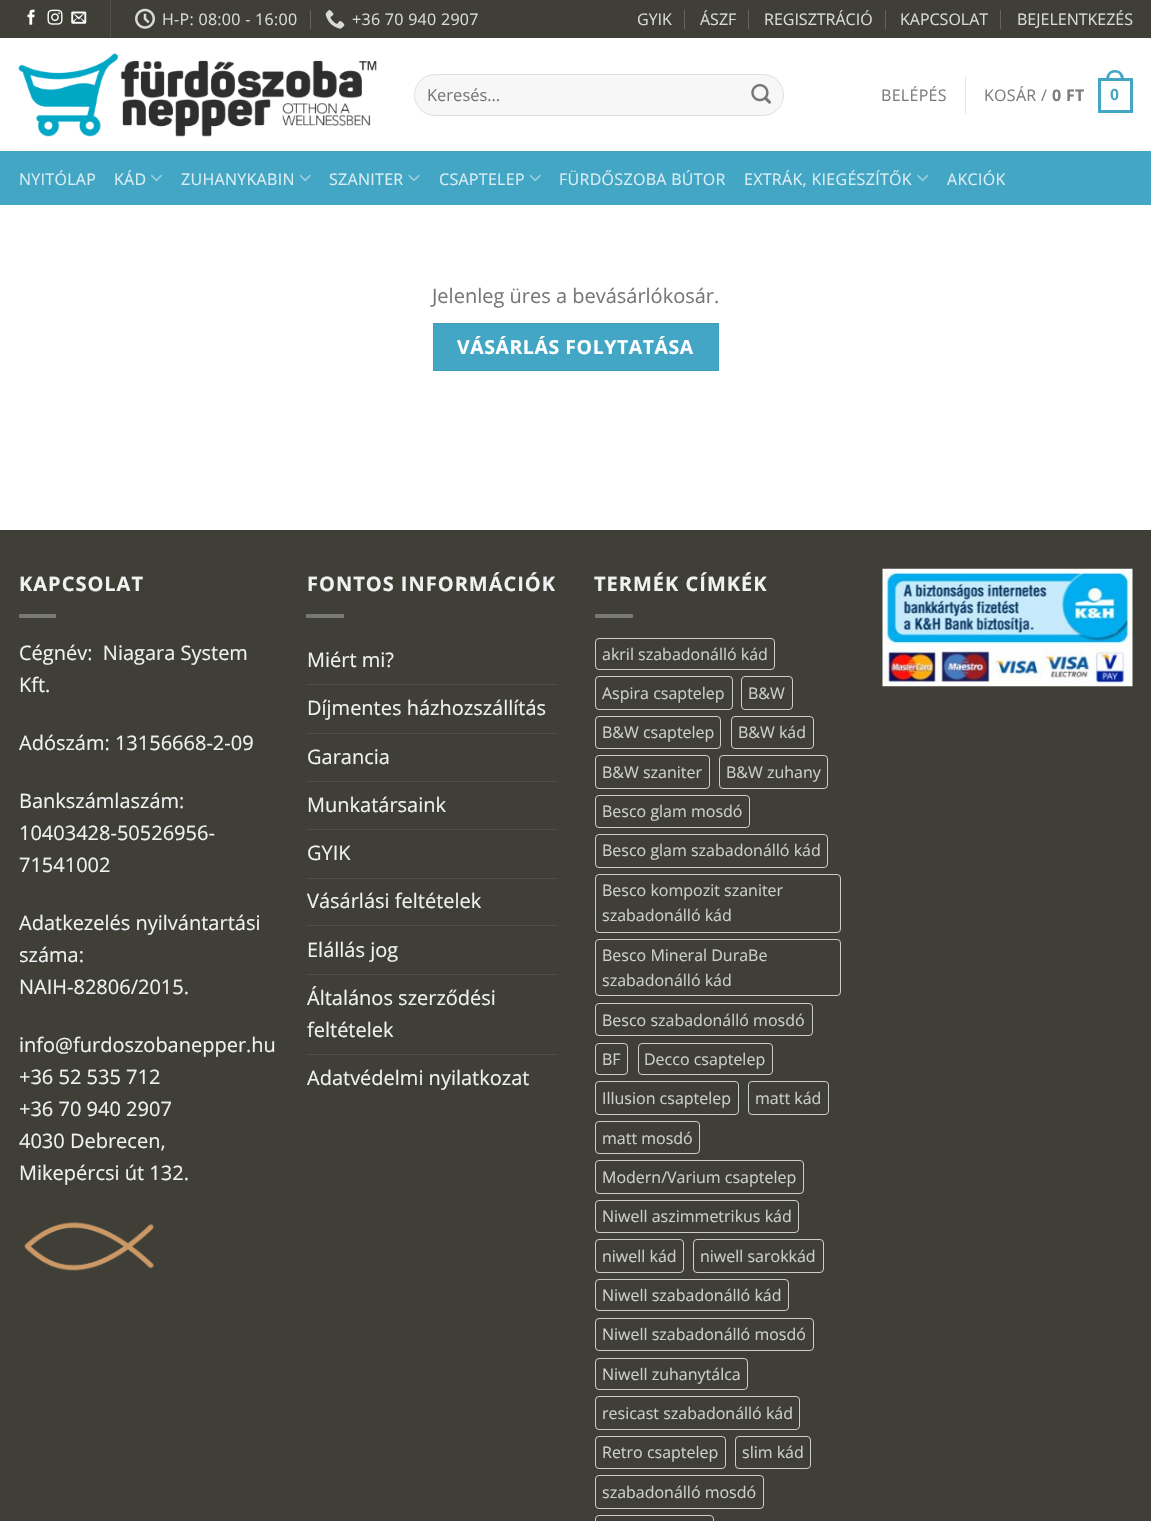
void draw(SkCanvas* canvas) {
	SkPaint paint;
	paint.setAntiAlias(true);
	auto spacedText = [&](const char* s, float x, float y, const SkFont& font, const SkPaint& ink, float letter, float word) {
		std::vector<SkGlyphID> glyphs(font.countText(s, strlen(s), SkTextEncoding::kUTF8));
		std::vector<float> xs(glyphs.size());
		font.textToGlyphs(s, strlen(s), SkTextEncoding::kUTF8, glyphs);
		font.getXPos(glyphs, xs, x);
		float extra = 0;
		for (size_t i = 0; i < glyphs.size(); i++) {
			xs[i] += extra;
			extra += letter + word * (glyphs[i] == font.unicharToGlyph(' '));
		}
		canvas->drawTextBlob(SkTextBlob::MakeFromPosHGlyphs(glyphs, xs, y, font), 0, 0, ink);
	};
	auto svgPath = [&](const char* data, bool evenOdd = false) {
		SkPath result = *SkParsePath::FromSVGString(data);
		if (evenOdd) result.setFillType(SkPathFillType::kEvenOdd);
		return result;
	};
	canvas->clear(0xffffffff);
	paint.setColor(0xff3f3f38);
	canvas->drawRect(SkRect::MakeXYWH(0, 0, 1151, 38), paint);
	canvas->drawImageRect(SkImages::DeferredFromEncodedData(SkData::MakeFromFileName("img1.png")), SkRect::MakeXYWH(27, 9, 8, 16), SkSamplingOptions());
	canvas->drawImageRect(SkImages::DeferredFromEncodedData(SkData::MakeFromFileName("img2.png")), SkRect::MakeXYWH(47, 9, 16, 16), SkSamplingOptions());
	canvas->drawImageRect(SkImages::DeferredFromEncodedData(SkData::MakeFromFileName("img3.png")), SkRect::MakeXYWH(71, 11, 16, 13), SkSamplingOptions());
	paint.setColor(0xff52524c);
	canvas->drawRect(SkRect::MakeXYWH(110, 0, 1, 38), paint);
	canvas->drawImageRect(SkImages::DeferredFromEncodedData(SkData::MakeFromFileName("img4.png")), SkRect::MakeXYWH(135, 8, 20, 21), SkSamplingOptions());
	SkFont f1(fontMgr->matchFamilyStyle("Open Sans", SkFontStyle::Normal()), 16);
	f1.setSubpixel(true);
	paint.setColor(0xffd9d9d7);
	spacedText("H-P: 08:00 - 16:00", 162, 25, f1, paint, 0.3, 0);
	paint.setColor(0xff656560);
	canvas->drawRect(SkRect::MakeXYWH(310, 10, 1, 19), paint);
	canvas->drawImageRect(SkImages::DeferredFromEncodedData(SkData::MakeFromFileName("img5.png")), SkRect::MakeXYWH(325, 10, 20, 19), SkSamplingOptions());
	paint.setColor(0xffd9d9d7);
	spacedText("+36 70 940 2907", 352, 25, f1, paint, 0.3, 0);
	canvas->drawString("GYIK", 637, 25, f1, paint);
	paint.setColor(0xff656560);
	canvas->drawRect(SkRect::MakeXYWH(684, 10, 1, 19), paint);
	paint.setColor(0xffd9d9d7);
	canvas->drawString("ÁSZF", 700, 25, f1, paint);
	paint.setColor(0xff656560);
	canvas->drawRect(SkRect::MakeXYWH(748, 10, 1, 19), paint);
	paint.setColor(0xffd9d9d7);
	canvas->drawString("REGISZTRÁCIÓ", 764, 25, f1, paint);
	paint.setColor(0xff656560);
	canvas->drawRect(SkRect::MakeXYWH(885, 10, 1, 19), paint);
	paint.setColor(0xffd9d9d7);
	canvas->drawString("KAPCSOLAT", 900, 25, f1, paint);
	paint.setColor(0xff656560);
	canvas->drawRect(SkRect::MakeXYWH(1000, 10, 1, 19), paint);
	paint.setColor(0xffd9d9d7);
	canvas->drawString("BEJELENTKEZÉS", 1017, 25, f1, paint);
	canvas->drawImageRect(SkImages::DeferredFromEncodedData(SkData::MakeFromFileName("img6.png")), SkRect::MakeXYWH(18, 53, 359, 84), SkSamplingOptions());
	paint.setColor(0xfff7f7f7);
	canvas->drawRoundRect(SkRect::MakeXYWH(414, 74, 370, 42), 21, 21, paint);
	paint.setStroke(true);
	paint.setStrokeWidth(1);
	paint.setColor(0x17000000);
	canvas->drawRoundRect(SkRect::MakeXYWH(414.5, 74.5, 369, 41), 20.5, 20.5, paint);
	SkFont f2(fontMgr->matchFamilyStyle("Open Sans", SkFontStyle::Normal()), 16.5);
	f2.setSubpixel(true);
	paint.setStroke(false);
	paint.setColor(0xff777777);
	canvas->drawString("Keresés…", 427, 101, f2, paint);
	canvas->drawImageRect(SkImages::DeferredFromEncodedData(SkData::MakeFromFileName("img7.png")), SkRect::MakeXYWH(751, 84, 20, 20), SkSamplingOptions());
	paint.setColor(0xff7d7d7d);
	spacedText("BELÉPÉS", 881, 101, f1, paint, 0.3, 0);
	paint.setColor(0xffe6e6e6);
	canvas->drawRect(SkRect::MakeXYWH(965, 76, 1, 38), paint);
	paint.setColor(0xff7d7d7d);
	spacedText("KOSÁR /", 984, 101, f1, paint, 0.3, 0);
	SkFont f3(fontMgr->matchFamilyStyle("Open Sans", SkFontStyle::Bold()), 16);
	f3.setSubpixel(true);
	spacedText("0 FT", 1052, 101, f3, paint, 0.3, 0);
	paint.setStroke(true);
	paint.setStrokeWidth(3);
	paint.setColor(0xff43a6c4);
	canvas->drawRect(SkRect::MakeXYWH(1099.5, 79.5, 32, 32), paint);
	paint.setStroke(false);
	canvas->drawPath(svgPath("M1115 70C1121 70 1124 74.5 1124 80H1106C1106 74.5 1109 70 1115 70ZM1115 72.5C1119.5 72.5 1121 76 1121 80H1109C1109 76 1110.5 72.5 1115 72.5Z", true), paint);
	SkFont f4(fontMgr->matchFamilyStyle("Liberation Sans", SkFontStyle::Bold()), 16);
	f4.setSubpixel(true);
	spacedText("0", 1110, 100, f4, paint, 0.3, 0);
	canvas->drawRect(SkRect::MakeXYWH(0, 151, 1151, 54), paint);
	paint.setColor(0xff48a1bc);
	canvas->drawRect(SkRect::MakeXYWH(19, 151, 1114, 1), paint);
	paint.setColor(0xffd9edf3);
	spacedText("NYITÓLAP", 19, 185, f1, paint, 0.3, 0);
	spacedText("KÁD", 114, 185, f1, paint, 0.3, 0);
	canvas->drawImageRect(SkImages::DeferredFromEncodedData(SkData::MakeFromFileName("img8.png")), SkRect::MakeXYWH(151, 174, 11, 8), SkSamplingOptions());
	spacedText("ZUHANYKABIN", 181, 185, f1, paint, 0.3, 0);
	canvas->drawImageRect(SkImages::DeferredFromEncodedData(SkData::MakeFromFileName("img9.png")), SkRect::MakeXYWH(299, 174, 12, 8), SkSamplingOptions());
	spacedText("SZANITER", 329, 185, f1, paint, 0.3, 0);
	canvas->drawImageRect(SkImages::DeferredFromEncodedData(SkData::MakeFromFileName("img10.png")), SkRect::MakeXYWH(408, 174, 12, 8), SkSamplingOptions());
	spacedText("CSAPTELEP", 439, 185, f1, paint, 0.3, 0);
	canvas->drawImageRect(SkImages::DeferredFromEncodedData(SkData::MakeFromFileName("img9.png")), SkRect::MakeXYWH(529, 174, 12, 8), SkSamplingOptions());
	spacedText("FÜRDŐSZOBA BÚTOR", 559, 185, f1, paint, 0.3, 0);
	spacedText("EXTRÁK, KIEGÉSZÍTŐK", 744, 185, f1, paint, 0.3, 0);
	canvas->drawImageRect(SkImages::DeferredFromEncodedData(SkData::MakeFromFileName("img11.png")), SkRect::MakeXYWH(917, 174, 12, 8), SkSamplingOptions());
	spacedText("AKCIÓK", 947, 185, f1, paint, 0.3, 0);
	SkFont f5(fontMgr->matchFamilyStyle("Open Sans", SkFontStyle::Normal()), 20);
	f5.setSubpixel(true);
	paint.setColor(0xff777777);
	canvas->drawString("Jelenleg üres a bevásárlókosár.", 432, 303, f5, paint);
	paint.setColor(0xff43a6c4);
	canvas->drawRect(SkRect::MakeXYWH(433.5, 323.5, 285, 47), paint);
	paint.setStroke(true);
	paint.setStrokeWidth(1);
	paint.setColor(0xff409eba);
	canvas->drawRect(SkRect::MakeXYWH(433.5, 323.5, 285, 47), paint);
	SkFont f6(fontMgr->matchFamilyStyle("Open Sans", SkFontStyle::Bold()), 19.4);
	f6.setSubpixel(true);
	paint.setStroke(false);
	paint.setColor(0xffffffff);
	spacedText("VÁSÁRLÁS FOLYTATÁSA", 457, 354, f6, paint, 0.6, 0);
	paint.setColor(0xff3f3f38);
	canvas->drawRect(SkRect::MakeXYWH(0, 531, 1151, 990), paint);
	paint.setColor(0xff3c3c35);
	canvas->drawRect(SkRect::MakeXYWH(0, 530, 1151, 1), paint);
	SkFont f7(fontMgr->matchFamilyStyle("Open Sans", SkFontStyle::Bold()), 20);
	f7.setSubpixel(true);
	paint.setColor(0xfff1f1f1);
	spacedText("KAPCSOLAT", 19, 591, f7, paint, 1, 0);
	paint.setColor(0xff797974);
	canvas->drawRect(SkRect::MakeXYWH(19, 614, 37, 4), paint);
	paint.setColor(0xfff1f1f1);
	canvas->drawString("Cégnév:  Niagara System", 19, 660, f5, paint);
	canvas->drawString("Kft.", 19, 692, f5, paint);
	canvas->drawString("Adószám: 13156668-2-09", 19, 750, f5, paint);
	canvas->drawString("Bankszámlaszám:", 19, 808, f5, paint);
	canvas->drawString("10403428-50526956-", 19, 840, f5, paint);
	canvas->drawString("71541002", 19, 872, f5, paint);
	canvas->drawString("Adatkezelés nyilvántartási", 19, 930, f5, paint);
	canvas->drawString("száma:", 19, 962, f5, paint);
	canvas->drawString("NAIH-82806/2015.", 19, 994, f5, paint);
	canvas->drawString("info@furdoszobanepper.hu", 19, 1052, f5, paint);
	canvas->drawString("+36 52 535 712", 19, 1084, f5, paint);
	canvas->drawString("+36 70 940 2907", 19, 1116, f5, paint);
	canvas->drawString("4030 Debrecen,", 19, 1148, f5, paint);
	canvas->drawString("Mikepércsi út 132.", 19, 1180, f5, paint);
	canvas->drawImageRect(SkImages::DeferredFromEncodedData(SkData::MakeFromFileName("img12.png")), SkRect::MakeXYWH(24, 1222, 130, 49), SkSamplingOptions());
	spacedText("FONTOS INFORMÁCIÓK", 307, 591, f7, paint, 1, 0);
	paint.setColor(0xff797974);
	canvas->drawRect(SkRect::MakeXYWH(306, 614, 38, 4), paint);
	paint.setColor(0xfff1f1f1);
	canvas->drawString("Miért mi?", 307, 667, f5, paint);
	paint.setColor(0xff4e4e48);
	canvas->drawRect(SkRect::MakeXYWH(306, 684, 252, 1), paint);
	paint.setColor(0xfff1f1f1);
	canvas->drawString("Díjmentes házhozszállítás", 307, 715, f5, paint);
	paint.setColor(0xff4e4e48);
	canvas->drawRect(SkRect::MakeXYWH(306, 733, 252, 1), paint);
	paint.setColor(0xfff1f1f1);
	canvas->drawString("Garancia", 307, 764, f5, paint);
	paint.setColor(0xff4e4e48);
	canvas->drawRect(SkRect::MakeXYWH(306, 781, 252, 1), paint);
	paint.setColor(0xfff1f1f1);
	canvas->drawString("Munkatársaink", 307, 812, f5, paint);
	paint.setColor(0xff4e4e48);
	canvas->drawRect(SkRect::MakeXYWH(306, 829, 252, 1), paint);
	paint.setColor(0xfff1f1f1);
	canvas->drawString("GYIK", 307, 860, f5, paint);
	paint.setColor(0xff4e4e48);
	canvas->drawRect(SkRect::MakeXYWH(306, 878, 252, 1), paint);
	paint.setColor(0xfff1f1f1);
	canvas->drawString("Vásárlási feltételek", 307, 908, f5, paint);
	paint.setColor(0xff4e4e48);
	canvas->drawRect(SkRect::MakeXYWH(306, 925, 252, 1), paint);
	paint.setColor(0xfff1f1f1);
	canvas->drawString("Elállás jog", 307, 957, f5, paint);
	paint.setColor(0xff4e4e48);
	canvas->drawRect(SkRect::MakeXYWH(306, 974, 252, 1), paint);
	paint.setColor(0xfff1f1f1);
	canvas->drawString("Általános szerződési", 307, 1005, f5, paint);
	canvas->drawString("feltételek", 307, 1037, f5, paint);
	paint.setColor(0xff4e4e48);
	canvas->drawRect(SkRect::MakeXYWH(306, 1054, 252, 1), paint);
	paint.setColor(0xfff1f1f1);
	canvas->drawString("Adatvédelmi nyilatkozat", 307, 1085, f5, paint);
	spacedText("TERMÉK CÍMKÉK", 594, 591, f7, paint, 1, 0);
	paint.setColor(0xff797974);
	canvas->drawRect(SkRect::MakeXYWH(595, 614, 38, 4), paint);
	paint.setStroke(true);
	paint.setColor(0xffcdcdcc);
	canvas->drawRoundRect(SkRect::MakeXYWH(595.5, 638.5, 179, 31), 3.5, 3.5, paint);
	paint.setStroke(false);
	canvas->drawString("akril szabadonálló kád", 602, 660, f1, paint);
	paint.setStroke(true);
	canvas->drawRoundRect(SkRect::MakeXYWH(595.5, 676.5, 137, 33), 3.5, 3.5, paint);
	paint.setStroke(false);
	canvas->drawString("Aspira csaptelep", 602, 699, f1, paint);
	paint.setStroke(true);
	canvas->drawRoundRect(SkRect::MakeXYWH(741.5, 676.5, 51, 33), 3.5, 3.5, paint);
	paint.setStroke(false);
	canvas->drawString("B&W", 748, 699, f1, paint);
	paint.setStroke(true);
	canvas->drawRoundRect(SkRect::MakeXYWH(595.5, 716.5, 125, 32), 3.5, 3.5, paint);
	paint.setStroke(false);
	canvas->drawString("B&W csaptelep", 602, 738, f1, paint);
	paint.setStroke(true);
	canvas->drawRoundRect(SkRect::MakeXYWH(731.5, 716.5, 82, 32), 3.5, 3.5, paint);
	paint.setStroke(false);
	canvas->drawString("B&W kád", 738, 738, f1, paint);
	paint.setStroke(true);
	canvas->drawRoundRect(SkRect::MakeXYWH(595.5, 755.5, 114, 33), 3.5, 3.5, paint);
	paint.setStroke(false);
	canvas->drawString("B&W szaniter", 602, 778, f1, paint);
	paint.setStroke(true);
	canvas->drawRoundRect(SkRect::MakeXYWH(719.5, 755.5, 108, 33), 3.5, 3.5, paint);
	paint.setStroke(false);
	canvas->drawString("B&W zuhany", 726, 778, f1, paint);
	paint.setStroke(true);
	canvas->drawRoundRect(SkRect::MakeXYWH(595.5, 795.5, 154, 32), 3.5, 3.5, paint);
	paint.setStroke(false);
	canvas->drawString("Besco glam mosdó", 602, 817, f1, paint);
	paint.setStroke(true);
	canvas->drawRoundRect(SkRect::MakeXYWH(595.5, 834.5, 232, 33), 3.5, 3.5, paint);
	paint.setStroke(false);
	canvas->drawString("Besco glam szabadonálló kád", 602, 856, f1, paint);
	paint.setStroke(true);
	canvas->drawRoundRect(SkRect::MakeXYWH(595.5, 874.5, 245, 58), 3.5, 3.5, paint);
	paint.setStroke(false);
	canvas->drawString("Besco kompozit szaniter", 602, 896, f1, paint);
	canvas->drawString("szabadonálló kád", 602, 921, f1, paint);
	paint.setStroke(true);
	canvas->drawRoundRect(SkRect::MakeXYWH(595.5, 939.5, 245, 56), 3.5, 3.5, paint);
	paint.setStroke(false);
	canvas->drawString("Besco Mineral DuraBe", 602, 961, f1, paint);
	canvas->drawString("szabadonálló kád", 602, 986, f1, paint);
	paint.setStroke(true);
	canvas->drawRoundRect(SkRect::MakeXYWH(595.5, 1003.5, 217, 32), 3.5, 3.5, paint);
	paint.setStroke(false);
	canvas->drawString("Besco szabadonálló mosdó", 602, 1026, f1, paint);
	paint.setStroke(true);
	canvas->drawRoundRect(SkRect::MakeXYWH(595.5, 1043.5, 32, 31), 3.5, 3.5, paint);
	paint.setStroke(false);
	canvas->drawString("BF", 602, 1065, f1, paint);
	paint.setStroke(true);
	canvas->drawRoundRect(SkRect::MakeXYWH(638.5, 1043.5, 134, 31), 3.5, 3.5, paint);
	paint.setStroke(false);
	canvas->drawString("Decco csaptelep", 644, 1065, f1, paint);
	paint.setStroke(true);
	canvas->drawRoundRect(SkRect::MakeXYWH(595.5, 1081.5, 143, 33), 3.5, 3.5, paint);
	paint.setStroke(false);
	canvas->drawString("Illusion csaptelep", 602, 1104, f1, paint);
	paint.setStroke(true);
	canvas->drawRoundRect(SkRect::MakeXYWH(748.5, 1081.5, 80, 33), 3.5, 3.5, paint);
	paint.setStroke(false);
	canvas->drawString("matt kád", 755, 1104, f1, paint);
	paint.setStroke(true);
	canvas->drawRoundRect(SkRect::MakeXYWH(595.5, 1121.5, 104, 32), 3.5, 3.5, paint);
	paint.setStroke(false);
	canvas->drawString("matt mosdó", 602, 1144, f1, paint);
	paint.setStroke(true);
	canvas->drawRoundRect(SkRect::MakeXYWH(595.5, 1160.5, 208, 33), 3.5, 3.5, paint);
	paint.setStroke(false);
	canvas->drawString("Modern/Varium csaptelep", 602, 1183, f1, paint);
	paint.setStroke(true);
	canvas->drawRoundRect(SkRect::MakeXYWH(595.5, 1200.5, 203, 32), 3.5, 3.5, paint);
	paint.setStroke(false);
	canvas->drawString("Niwell aszimmetrikus kád", 602, 1222, f1, paint);
	paint.setStroke(true);
	canvas->drawRoundRect(SkRect::MakeXYWH(595.5, 1239.5, 88, 33), 3.5, 3.5, paint);
	paint.setStroke(false);
	canvas->drawString("niwell kád", 602, 1262, f1, paint);
	paint.setStroke(true);
	canvas->drawRoundRect(SkRect::MakeXYWH(693.5, 1239.5, 130, 33), 3.5, 3.5, paint);
	paint.setStroke(false);
	canvas->drawString("niwell sarokkád", 700, 1262, f1, paint);
	paint.setStroke(true);
	canvas->drawRoundRect(SkRect::MakeXYWH(595.5, 1279.5, 193, 31), 3.5, 3.5, paint);
	paint.setStroke(false);
	canvas->drawString("Niwell szabadonálló kád", 602, 1301, f1, paint);
	paint.setStroke(true);
	canvas->drawRoundRect(SkRect::MakeXYWH(595.5, 1318.5, 218, 32), 3.5, 3.5, paint);
	paint.setStroke(false);
	canvas->drawString("Niwell szabadonálló mosdó", 602, 1340, f1, paint);
	paint.setStroke(true);
	canvas->drawRoundRect(SkRect::MakeXYWH(595.5, 1358.5, 152, 31), 3.5, 3.5, paint);
	paint.setStroke(false);
	canvas->drawString("Niwell zuhanytálca", 602, 1380, f1, paint);
	paint.setStroke(true);
	canvas->drawRoundRect(SkRect::MakeXYWH(595.5, 1396.5, 204, 33), 3.5, 3.5, paint);
	paint.setStroke(false);
	canvas->drawString("resicast szabadonálló kád", 602, 1419, f1, paint);
	paint.setStroke(true);
	canvas->drawRoundRect(SkRect::MakeXYWH(595.5, 1436.5, 130, 32), 3.5, 3.5, paint);
	paint.setStroke(false);
	canvas->drawString("Retro csaptelep", 602, 1458, f1, paint);
	paint.setStroke(true);
	canvas->drawRoundRect(SkRect::MakeXYWH(735.5, 1436.5, 75, 32), 3.5, 3.5, paint);
	paint.setStroke(false);
	canvas->drawString("slim kád", 742, 1458, f1, paint);
	paint.setStroke(true);
	canvas->drawRoundRect(SkRect::MakeXYWH(595.5, 1475.5, 168, 33), 3.5, 3.5, paint);
	paint.setStroke(false);
	canvas->drawString("szabadonálló mosdó", 602, 1498, f1, paint);
	paint.setStroke(true);
	canvas->drawRoundRect(SkRect::MakeXYWH(595.5, 1515.5, 118, 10), 3.5, 3.5, paint);
	canvas->drawImageRect(SkImages::DeferredFromEncodedData(SkData::MakeFromFileName("img13.png")), SkRect::MakeXYWH(882, 568, 251, 119), SkSamplingOptions());
}
